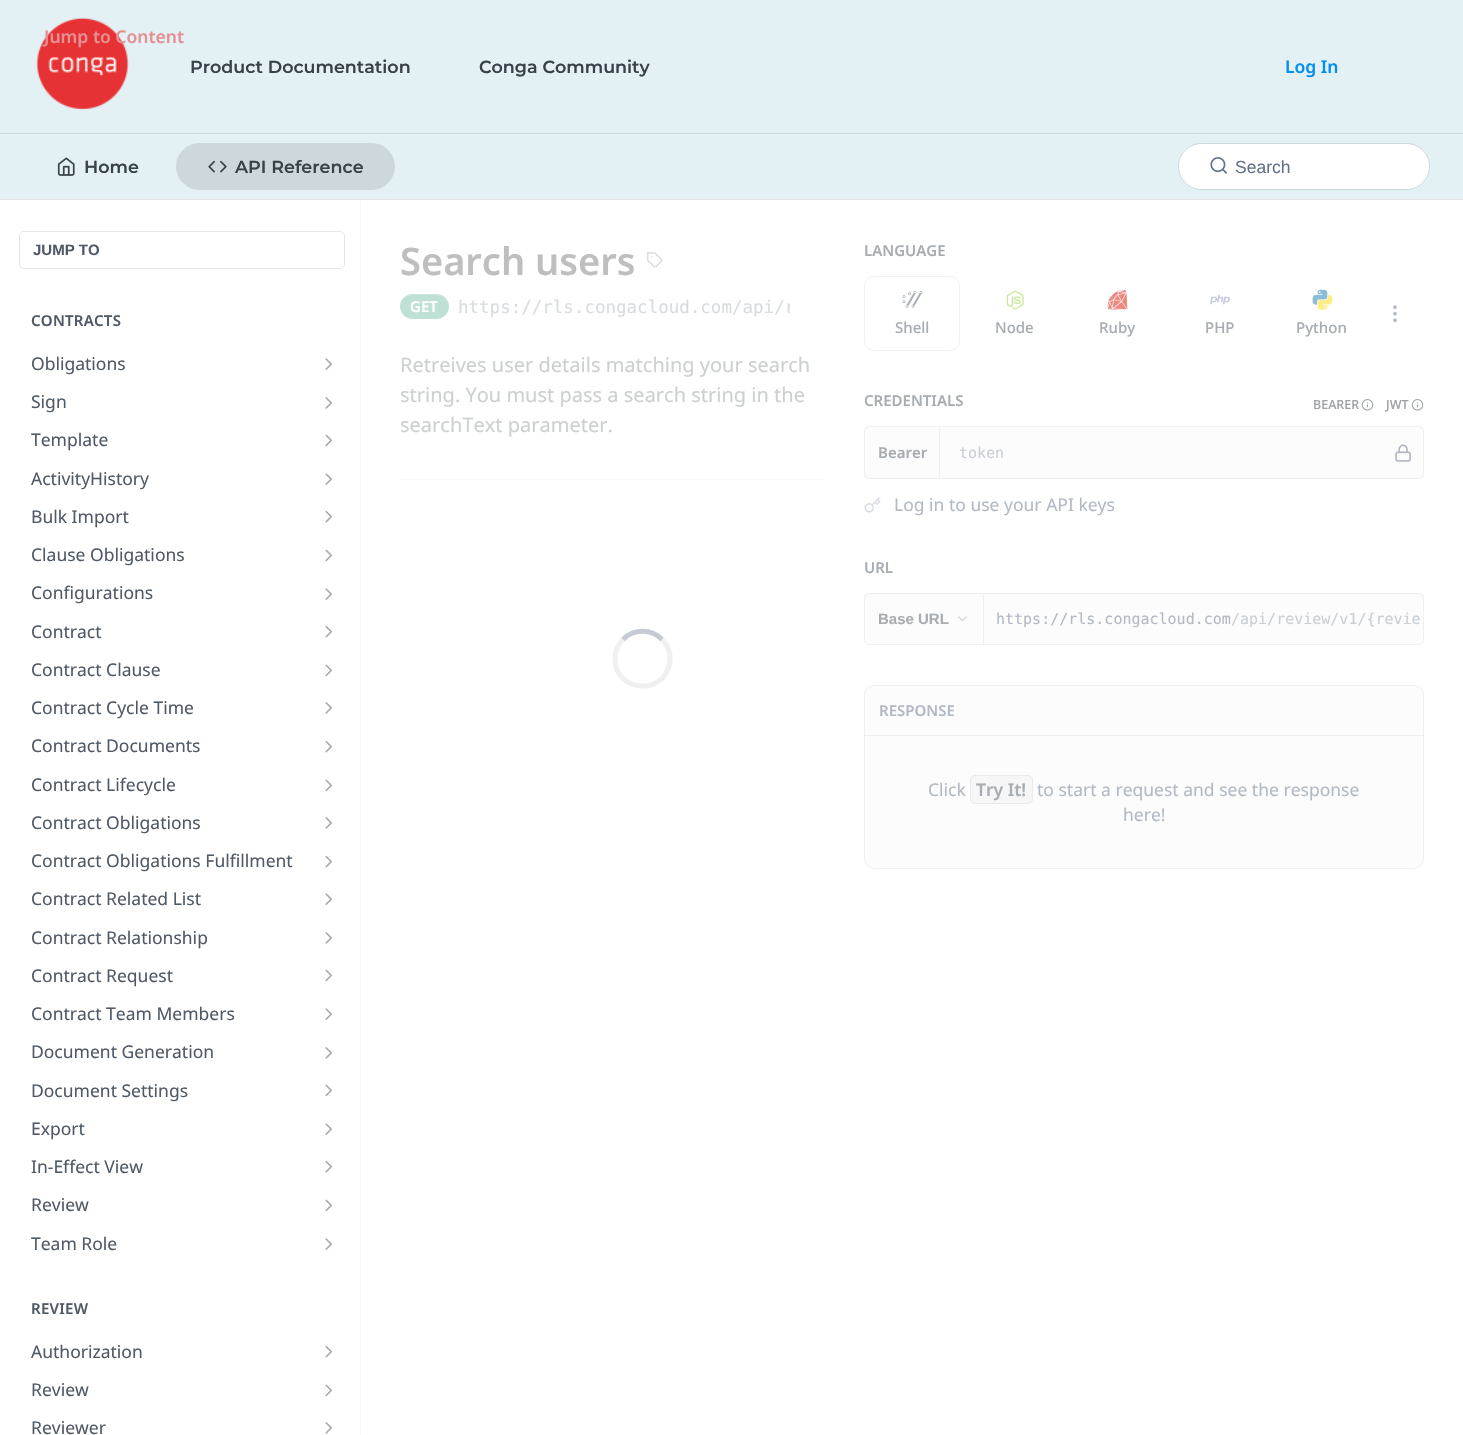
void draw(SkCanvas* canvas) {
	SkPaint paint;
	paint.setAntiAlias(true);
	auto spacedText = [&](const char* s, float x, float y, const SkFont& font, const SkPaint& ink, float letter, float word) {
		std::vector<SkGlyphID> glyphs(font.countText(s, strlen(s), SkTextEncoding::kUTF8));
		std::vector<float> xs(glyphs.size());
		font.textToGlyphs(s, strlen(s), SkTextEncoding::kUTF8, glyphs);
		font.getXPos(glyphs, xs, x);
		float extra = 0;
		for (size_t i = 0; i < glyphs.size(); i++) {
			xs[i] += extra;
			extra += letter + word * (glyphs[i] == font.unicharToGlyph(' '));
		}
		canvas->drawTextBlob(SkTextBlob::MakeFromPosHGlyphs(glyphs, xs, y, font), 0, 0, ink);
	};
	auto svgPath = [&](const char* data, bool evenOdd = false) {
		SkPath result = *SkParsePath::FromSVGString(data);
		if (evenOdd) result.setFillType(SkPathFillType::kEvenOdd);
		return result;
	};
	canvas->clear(0xffffffff);
	paint.setColor(0xfff9f9f9);
	canvas->drawPath(svgPath("M1 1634H361V199H360V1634Z"), paint);
	paint.setColor(0x1a000000);
	canvas->drawPath(svgPath("M0 199V200H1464V1V199Z"), paint);
	paint.setColor(0xffe3f0f4);
	canvas->drawRect(SkRect::MakeXYWH(0, 0, 1463, 199), paint);
	paint.setColor(0xffccd8dc);
	canvas->drawRect(SkRect::MakeXYWH(0, 133, 1463, 1), paint);
	canvas->drawImageRect(SkImages::DeferredFromEncodedData(SkData::MakeFromFileName("img1.png")), SkRect::MakeXYWH(36, 17, 93, 93), SkSamplingOptions());
	SkFont f1(fontMgr->matchFamilyStyle("Noto Sans", SkFontStyle(600, SkFontStyle::kNormal_Width, SkFontStyle::kUpright_Slant)), 17.5);
	f1.setSubpixel(true);
	paint.setColor(0xffe59194);
	canvas->drawString("Jump to Content", 44, 43, f1, paint);
	SkFont f2(fontMgr->matchFamilyStyle("Montserrat", SkFontStyle(600, SkFontStyle::kNormal_Width, SkFontStyle::kUpright_Slant)), 17.5);
	f2.setSubpixel(true);
	paint.setColor(0xff384248);
	canvas->drawString("Product Documentation", 190, 73, f2, paint);
	canvas->drawString("Conga Community", 479, 73, f2, paint);
	paint.setColor(0xff018ef5);
	canvas->drawString("Log In", 1285, 73, f1, paint);
	canvas->drawImageRect(SkImages::DeferredFromEncodedData(SkData::MakeFromFileName("img2.png")), SkRect::MakeXYWH(57, 157, 18, 19), SkSamplingOptions());
	paint.setColor(0xff384248);
	canvas->drawString("Home", 84, 173, f2, paint);
	paint.setColor(0xffccd8dc);
	canvas->drawRoundRect(SkRect::MakeXYWH(176, 143, 219, 47), 23.5, 23.5, paint);
	canvas->drawImageRect(SkImages::DeferredFromEncodedData(SkData::MakeFromFileName("img3.png")), SkRect::MakeXYWH(208, 160, 19, 13), SkSamplingOptions());
	paint.setColor(0xff384248);
	canvas->drawString("API Reference", 235, 173, f2, paint);
	paint.setStroke(true);
	paint.setStrokeWidth(1);
	paint.setColor(0xffccd8dc);
	canvas->drawRoundRect(SkRect::MakeXYWH(1178.5, 143.5, 251, 46), 23, 23, paint);
	paint.setStroke(false);
	paint.setColor(0xffffffff);
	canvas->drawRoundRect(SkRect::MakeXYWH(1179, 144, 250, 45), 22.5, 22.5, paint);
	canvas->drawImageRect(SkImages::DeferredFromEncodedData(SkData::MakeFromFileName("img4.png")), SkRect::MakeXYWH(1210, 157, 17, 17), SkSamplingOptions());
	SkFont f3(fontMgr->matchFamilyStyle("Liberation Sans", SkFontStyle::Normal()), 17.5);
	f3.setSubpixel(true);
	paint.setColor(0xff637288);
	canvas->drawString("Search", 1235, 173, f3, paint);
	paint.setStroke(true);
	paint.setColor(0xffe6e6e6);
	canvas->drawRoundRect(SkRect::MakeXYWH(19.5, 231.5, 325, 37), 4.5, 4.5, paint);
	SkFont f4(fontMgr->matchFamilyStyle("Liberation Sans", SkFontStyle::Bold()), 15);
	f4.setSubpixel(true);
	paint.setStroke(false);
	paint.setColor(0xff4f5a66);
	canvas->drawString("JUMP TO", 33, 255, f4, paint);
	SkFont f5(fontMgr->matchFamilyStyle("Noto Sans", SkFontStyle(600, SkFontStyle::kNormal_Width, SkFontStyle::kUpright_Slant)), 15);
	f5.setSubpixel(true);
	spacedText("CONTRACTS", 31, 326, f5, paint, 0.25, 0);
	SkFont f6(fontMgr->matchFamilyStyle("Noto Sans", SkFontStyle::Normal()), 17.5);
	f6.setSubpixel(true);
	canvas->drawString("Obligations", 31, 370, f6, paint);
	canvas->drawImageRect(SkImages::DeferredFromEncodedData(SkData::MakeFromFileName("img5.png")), SkRect::MakeXYWH(325, 358, 7, 12), SkSamplingOptions());
	canvas->drawString("Sign", 31, 408, f6, paint);
	canvas->drawImageRect(SkImages::DeferredFromEncodedData(SkData::MakeFromFileName("img6.png")), SkRect::MakeXYWH(325, 397, 7, 12), SkSamplingOptions());
	canvas->drawString("Template", 31, 446, f6, paint);
	canvas->drawImageRect(SkImages::DeferredFromEncodedData(SkData::MakeFromFileName("img7.png")), SkRect::MakeXYWH(325, 434, 7, 13), SkSamplingOptions());
	canvas->drawString("ActivityHistory", 31, 485, f6, paint);
	canvas->drawImageRect(SkImages::DeferredFromEncodedData(SkData::MakeFromFileName("img5.png")), SkRect::MakeXYWH(325, 473, 7, 12), SkSamplingOptions());
	canvas->drawString("Bulk Import", 31, 523, f6, paint);
	canvas->drawImageRect(SkImages::DeferredFromEncodedData(SkData::MakeFromFileName("img8.png")), SkRect::MakeXYWH(325, 510, 7, 13), SkSamplingOptions());
	canvas->drawString("Clause Obligations", 31, 561, f6, paint);
	canvas->drawImageRect(SkImages::DeferredFromEncodedData(SkData::MakeFromFileName("img7.png")), SkRect::MakeXYWH(325, 549, 7, 13), SkSamplingOptions());
	canvas->drawString("Configurations", 31, 599, f6, paint);
	canvas->drawImageRect(SkImages::DeferredFromEncodedData(SkData::MakeFromFileName("img5.png")), SkRect::MakeXYWH(325, 588, 7, 12), SkSamplingOptions());
	canvas->drawString("Contract", 31, 638, f6, paint);
	canvas->drawImageRect(SkImages::DeferredFromEncodedData(SkData::MakeFromFileName("img8.png")), SkRect::MakeXYWH(325, 625, 7, 13), SkSamplingOptions());
	canvas->drawString("Contract Clause", 31, 676, f6, paint);
	canvas->drawImageRect(SkImages::DeferredFromEncodedData(SkData::MakeFromFileName("img7.png")), SkRect::MakeXYWH(325, 664, 7, 13), SkSamplingOptions());
	canvas->drawString("Contract Cycle Time", 31, 714, f6, paint);
	canvas->drawImageRect(SkImages::DeferredFromEncodedData(SkData::MakeFromFileName("img6.png")), SkRect::MakeXYWH(325, 702, 7, 12), SkSamplingOptions());
	canvas->drawString("Contract Documents", 31, 752, f6, paint);
	canvas->drawImageRect(SkImages::DeferredFromEncodedData(SkData::MakeFromFileName("img8.png")), SkRect::MakeXYWH(325, 740, 7, 13), SkSamplingOptions());
	canvas->drawString("Contract Lifecycle", 31, 791, f6, paint);
	canvas->drawImageRect(SkImages::DeferredFromEncodedData(SkData::MakeFromFileName("img7.png")), SkRect::MakeXYWH(325, 779, 7, 13), SkSamplingOptions());
	canvas->drawString("Contract Obligations", 31, 829, f6, paint);
	canvas->drawImageRect(SkImages::DeferredFromEncodedData(SkData::MakeFromFileName("img6.png")), SkRect::MakeXYWH(325, 817, 7, 12), SkSamplingOptions());
	canvas->drawString("Contract Obligations Fulfillment", 31, 867, f6, paint);
	canvas->drawImageRect(SkImages::DeferredFromEncodedData(SkData::MakeFromFileName("img8.png")), SkRect::MakeXYWH(325, 855, 7, 13), SkSamplingOptions());
	canvas->drawString("Contract Related List", 31, 905, f6, paint);
	canvas->drawImageRect(SkImages::DeferredFromEncodedData(SkData::MakeFromFileName("img5.png")), SkRect::MakeXYWH(325, 893, 7, 12), SkSamplingOptions());
	canvas->drawString("Contract Relationship", 31, 944, f6, paint);
	canvas->drawImageRect(SkImages::DeferredFromEncodedData(SkData::MakeFromFileName("img6.png")), SkRect::MakeXYWH(325, 932, 7, 12), SkSamplingOptions());
	canvas->drawString("Contract Request", 31, 982, f6, paint);
	canvas->drawImageRect(SkImages::DeferredFromEncodedData(SkData::MakeFromFileName("img7.png")), SkRect::MakeXYWH(325, 969, 7, 13), SkSamplingOptions());
	canvas->drawString("Contract Team Members", 31, 1020, f6, paint);
	canvas->drawImageRect(SkImages::DeferredFromEncodedData(SkData::MakeFromFileName("img5.png")), SkRect::MakeXYWH(325, 1008, 7, 12), SkSamplingOptions());
	canvas->drawString("Document Generation", 31, 1058, f6, paint);
	canvas->drawImageRect(SkImages::DeferredFromEncodedData(SkData::MakeFromFileName("img6.png")), SkRect::MakeXYWH(325, 1047, 7, 12), SkSamplingOptions());
	canvas->drawString("Document Settings", 31, 1097, f6, paint);
	canvas->drawImageRect(SkImages::DeferredFromEncodedData(SkData::MakeFromFileName("img7.png")), SkRect::MakeXYWH(325, 1084, 7, 13), SkSamplingOptions());
	canvas->drawString("Export", 31, 1135, f6, paint);
	canvas->drawImageRect(SkImages::DeferredFromEncodedData(SkData::MakeFromFileName("img5.png")), SkRect::MakeXYWH(325, 1123, 7, 12), SkSamplingOptions());
	canvas->drawString("In-Effect View", 31, 1173, f6, paint);
	canvas->drawImageRect(SkImages::DeferredFromEncodedData(SkData::MakeFromFileName("img8.png")), SkRect::MakeXYWH(325, 1160, 7, 13), SkSamplingOptions());
	canvas->drawString("Review", 31, 1211, f6, paint);
	canvas->drawImageRect(SkImages::DeferredFromEncodedData(SkData::MakeFromFileName("img7.png")), SkRect::MakeXYWH(325, 1199, 7, 13), SkSamplingOptions());
	canvas->drawString("Team Role", 31, 1250, f6, paint);
	canvas->drawImageRect(SkImages::DeferredFromEncodedData(SkData::MakeFromFileName("img5.png")), SkRect::MakeXYWH(325, 1238, 7, 12), SkSamplingOptions());
	spacedText("REVIEW", 31, 1314, f5, paint, 0.25, 0);
	canvas->drawString("Authorization", 31, 1358, f6, paint);
	canvas->drawImageRect(SkImages::DeferredFromEncodedData(SkData::MakeFromFileName("img8.png")), SkRect::MakeXYWH(325, 1345, 7, 13), SkSamplingOptions());
	canvas->drawString("Review", 31, 1396, f6, paint);
	canvas->drawImageRect(SkImages::DeferredFromEncodedData(SkData::MakeFromFileName("img7.png")), SkRect::MakeXYWH(325, 1384, 7, 13), SkSamplingOptions());
	canvas->drawString("Reviewer", 31, 1434, f6, paint);
	canvas->drawImageRect(SkImages::DeferredFromEncodedData(SkData::MakeFromFileName("img6.png")), SkRect::MakeXYWH(325, 1422, 7, 12), SkSamplingOptions());
	paint.setColor(0xfff9f9f9);
	canvas->drawRect(SkRect::MakeXYWH(400, 479, 424, 1), paint);
	SkFont f7(fontMgr->matchFamilyStyle("Noto Sans", SkFontStyle(600, SkFontStyle::kNormal_Width, SkFontStyle::kUpright_Slant)), 38);
	f7.setSubpixel(true);
	paint.setColor(0xffbfbfbf);
	canvas->drawString("Search users", 400, 275, f7, paint);
	canvas->drawImageRect(SkImages::DeferredFromEncodedData(SkData::MakeFromFileName("img9.png")), SkRect::MakeXYWH(646, 252, 17, 16), SkSamplingOptions());
	paint.setColor(0xffbfe1d5);
	canvas->drawRoundRect(SkRect::MakeXYWH(400, 294, 49, 25), 12.5, 12.5, paint);
	paint.setColor(0x33ffffff);
	canvas->drawPath(svgPath("M412 295H436C443 295 449 301 449 307C449 305 448 302 447 300C442 292 432 294 424 294C417 294 407 292 402 300C401 302 400 305 400 307C400 301 406 295 412 295Z"), paint);
	paint.setColor(0xffffffff);
	canvas->drawString("GET", 410, 312, f5, paint);
	SkFont f8(fontMgr->matchFamilyStyle("DejaVu Sans Mono", SkFontStyle::Normal()), 17.5);
	f8.setSubpixel(true);
	paint.setColor(0xffd8dce1);
	canvas->drawString("https://rls.congacloud.com", 458, 313, f8, paint);
	canvas->save();
	canvas->clipRect(SkRect::MakeXYWH(459, 294, 331, 25));
	canvas->drawString("/api/r", 732, 313, f8, paint);
	canvas->restore();
	SkFont f9(fontMgr->matchFamilyStyle("Noto Sans", SkFontStyle::Normal()), 20);
	f9.setSubpixel(true);
	paint.setColor(0xffcdd0d1);
	canvas->drawString("Retreives user details matching your search", 400, 372, f9, paint);
	canvas->drawString("string. You must pass a search string in the", 400, 402, f9, paint);
	canvas->drawString("searchText parameter.", 400, 432, f9, paint);
	paint.setStroke(true);
	paint.setStrokeWidth(5);
	paint.setColor(0xffc6cbd3);
	canvas->drawPath(svgPath("M623 639.5C633.5 628.5 651.5 628.5 662 639.5"), paint);
	paint.setColor(0xfff0f0f0);
	canvas->drawPath(svgPath("M662 639.5C668.5 645.5 671.5 655 669.5 664C663 696.5 615 691.5 615 659C615 651.5 618 644.5 623 639.5"), paint);
	paint.setStroke(false);
	paint.setColor(0xffa7adb3);
	canvas->drawString("LANGUAGE", 864, 256, f5, paint);
	canvas->drawImageRect(SkImages::DeferredFromEncodedData(SkData::MakeFromFileName("img10.png")), SkRect::MakeXYWH(1393, 305, 4, 18), SkSamplingOptions());
	paint.setStroke(true);
	paint.setStrokeWidth(1);
	paint.setColor(0xfff2f2f2);
	canvas->drawRoundRect(SkRect::MakeXYWH(864.5, 276.5, 95, 74), 9.5, 9.5, paint);
	canvas->drawImageRect(SkImages::DeferredFromEncodedData(SkData::MakeFromFileName("img11.png")), SkRect::MakeXYWH(902, 291, 21, 17), SkSamplingOptions());
	SkFont f10(fontMgr->matchFamilyStyle("Noto Sans", SkFontStyle(500, SkFontStyle::kNormal_Width, SkFontStyle::kUpright_Slant)), 15);
	f10.setSubpixel(true);
	paint.setStroke(false);
	paint.setColor(0xffa7adb3);
	canvas->drawString("Shell", 895, 333, f10, paint);
	canvas->drawImageRect(SkImages::DeferredFromEncodedData(SkData::MakeFromFileName("img12.png")), SkRect::MakeXYWH(1006, 290, 18, 20), SkSamplingOptions());
	canvas->drawString("Node", 995, 333, f10, paint);
	canvas->drawImageRect(SkImages::DeferredFromEncodedData(SkData::MakeFromFileName("img13.png")), SkRect::MakeXYWH(1107, 289, 21, 21), SkSamplingOptions());
	canvas->drawString("Ruby", 1099, 333, f10, paint);
	canvas->drawImageRect(SkImages::DeferredFromEncodedData(SkData::MakeFromFileName("img14.png")), SkRect::MakeXYWH(1210, 294, 20, 11), SkSamplingOptions());
	canvas->drawString("PHP", 1205, 333, f10, paint);
	canvas->drawImageRect(SkImages::DeferredFromEncodedData(SkData::MakeFromFileName("img15.png")), SkRect::MakeXYWH(1312, 289, 16, 16), SkSamplingOptions());
	canvas->drawImageRect(SkImages::DeferredFromEncodedData(SkData::MakeFromFileName("img16.png")), SkRect::MakeXYWH(1317, 294, 16, 16), SkSamplingOptions());
	canvas->drawString("Python", 1296, 333, f10, paint);
	canvas->drawString("CREDENTIALS", 864, 406, f5, paint);
	SkFont f11(fontMgr->matchFamilyStyle("Noto Sans", SkFontStyle(500, SkFontStyle::kNormal_Width, SkFontStyle::kUpright_Slant)), 12.5);
	f11.setSubpixel(true);
	paint.setColor(0xff9ca1a4);
	canvas->drawString("BEARER", 1313, 409, f11, paint);
	canvas->drawImageRect(SkImages::DeferredFromEncodedData(SkData::MakeFromFileName("img17.png")), SkRect::MakeXYWH(1361, 399, 13, 12), SkSamplingOptions());
	canvas->drawString("JWT", 1386, 409, f11, paint);
	canvas->drawImageRect(SkImages::DeferredFromEncodedData(SkData::MakeFromFileName("img17.png")), SkRect::MakeXYWH(1411, 399, 13, 12), SkSamplingOptions());
	paint.setColor(0xfffcfcfc);
	canvas->drawRoundRect(SkRect::MakeXYWH(864.5, 426.5, 559, 52), 4.5, 4.5, paint);
	paint.setStroke(true);
	paint.setColor(0xfff0f0f0);
	canvas->drawRoundRect(SkRect::MakeXYWH(864.5, 426.5, 559, 52), 4.5, 4.5, paint);
	paint.setStroke(false);
	canvas->drawRect(SkRect::MakeXYWH(939, 428, 1, 50), paint);
	paint.setColor(0xffa7adb3);
	canvas->drawString("Bearer", 878, 458, f5, paint);
	SkFont f12(fontMgr->matchFamilyStyle("DejaVu Sans Mono", SkFontStyle::Normal()), 15);
	f12.setSubpixel(true);
	paint.setColor(0xffc9cfd7);
	canvas->drawString("token", 959, 458, f12, paint);
	canvas->drawImageRect(SkImages::DeferredFromEncodedData(SkData::MakeFromFileName("img18.png")), SkRect::MakeXYWH(1395, 444, 16, 18), SkSamplingOptions());
	canvas->drawImageRect(SkImages::DeferredFromEncodedData(SkData::MakeFromFileName("img19.png")), SkRect::MakeXYWH(864, 497, 17, 16), SkSamplingOptions());
	paint.setColor(0xffb1b9c4);
	canvas->drawString("Log in to use your API keys", 894, 511, f6, paint);
	paint.setColor(0xffa7adb3);
	canvas->drawString("URL", 864, 573, f5, paint);
	paint.setColor(0xfffcfcfc);
	canvas->drawRoundRect(SkRect::MakeXYWH(864.5, 593.5, 559, 51), 4.5, 4.5, paint);
	paint.setStroke(true);
	paint.setColor(0xfff0f0f0);
	canvas->drawRoundRect(SkRect::MakeXYWH(864.5, 593.5, 559, 51), 4.5, 4.5, paint);
	paint.setStroke(false);
	canvas->drawRect(SkRect::MakeXYWH(983, 594, 1, 50), paint);
	paint.setColor(0xffa7adb3);
	canvas->drawString("Base URL", 878, 624, f4, paint);
	canvas->drawImageRect(SkImages::DeferredFromEncodedData(SkData::MakeFromFileName("img20.png")), SkRect::MakeXYWH(958, 616, 9, 6), SkSamplingOptions());
	paint.setColor(0xffb1b9c4);
	canvas->drawString("https://rls.congacloud.com", 996, 624, f12, paint);
	paint.setColor(0xffc9cfd7);
	canvas->drawString("/api/review/v1/{revie", 1231, 624, f12, paint);
	paint.setColor(0xfffcfcfc);
	canvas->drawRoundRect(SkRect::MakeXYWH(864.5, 685.5, 559, 183), 9.5, 9.5, paint);
	paint.setStroke(true);
	paint.setColor(0xfff0f0f0);
	canvas->drawRoundRect(SkRect::MakeXYWH(864.5, 685.5, 559, 183), 9.5, 9.5, paint);
	paint.setStroke(false);
	canvas->drawRect(SkRect::MakeXYWH(865, 735, 558, 1), paint);
	paint.setColor(0xffb1b9c4);
	canvas->drawString("RESPONSE", 879, 716, f5, paint);
	canvas->drawString("Click", 928, 796, f6, paint);
	paint.setColor(0xfff6f6f6);
	canvas->drawRoundRect(SkRect::MakeXYWH(970, 775, 63, 29), 5, 5, paint);
	paint.setStroke(true);
	paint.setColor(0x1a808080);
	canvas->drawRoundRect(SkRect::MakeXYWH(970.5, 775.5, 62, 28), 4.5, 4.5, paint);
	paint.setStroke(false);
	paint.setColor(0xffa7adb3);
	canvas->drawString("Try It!", 976, 796, f1, paint);
	paint.setColor(0xffb1b9c4);
	canvas->drawString("to start a request and see the response", 1037, 796, f6, paint);
	canvas->drawString("here!", 1123, 821, f6, paint);
}
